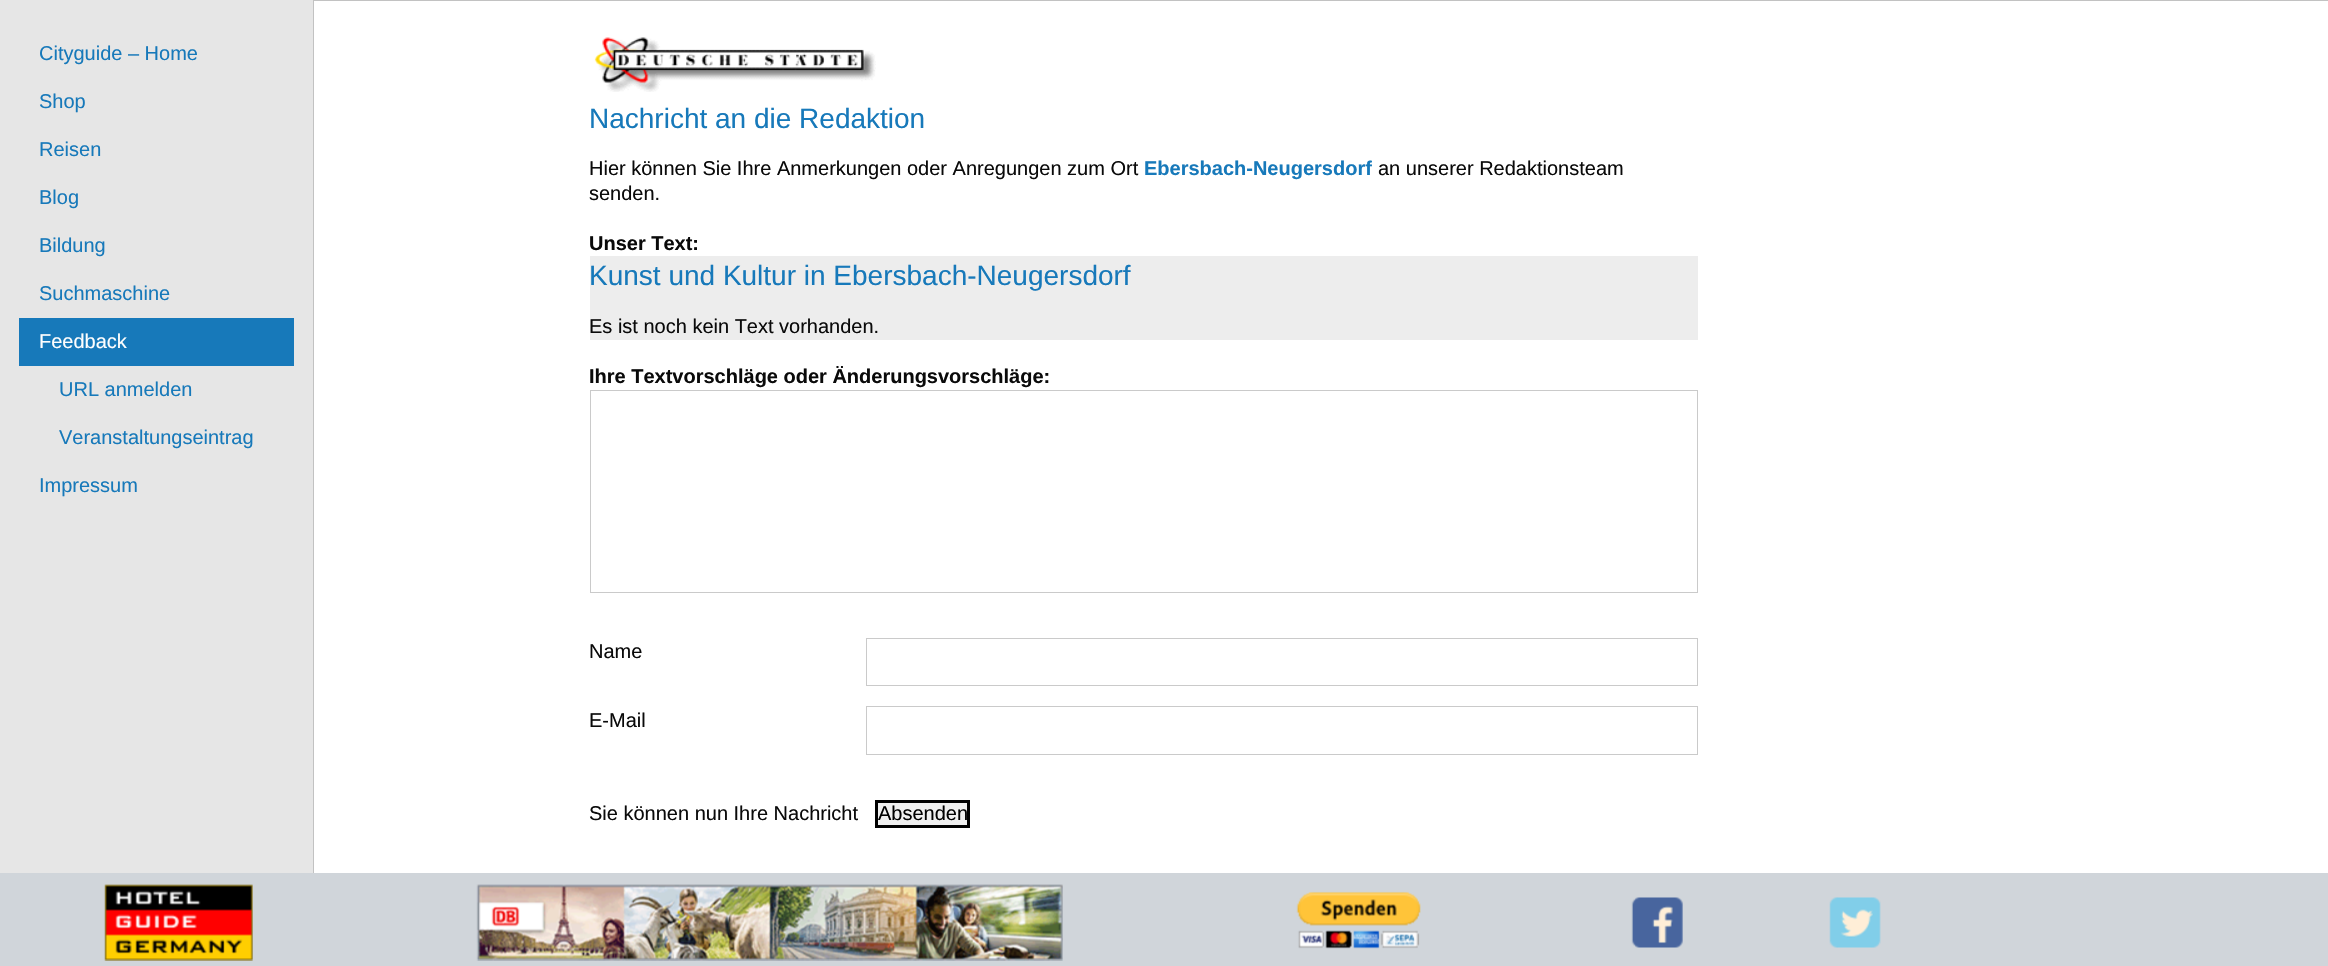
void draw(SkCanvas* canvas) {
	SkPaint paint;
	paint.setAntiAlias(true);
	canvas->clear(0xffffffff);
	paint.setColor(0xffe6e6e6);
	canvas->drawRect(SkRect::MakeXYWH(0, 0, 313, 873), paint);
	SkFont f1(fontMgr->matchFamilyStyle("Liberation Sans", SkFontStyle::Normal()), 20);
	f1.setSubpixel(true);
	paint.setColor(0xff1779ba);
	canvas->drawString("Cityguide – Home", 39, 60, f1, paint);
	canvas->drawString("Shop", 39, 108, f1, paint);
	canvas->drawString("Reisen", 39, 156, f1, paint);
	canvas->drawString("Blog", 39, 204, f1, paint);
	canvas->drawString("Bildung", 39, 252, f1, paint);
	canvas->drawString("Suchmaschine", 39, 300, f1, paint);
	canvas->drawRect(SkRect::MakeXYWH(19, 318, 275, 48), paint);
	paint.setColor(0xfffefefe);
	canvas->drawString("Feedback", 39, 348, f1, paint);
	paint.setColor(0xff1779ba);
	canvas->drawString("URL anmelden", 59, 396, f1, paint);
	canvas->drawString("Veranstaltungseintrag", 59, 444, f1, paint);
	canvas->drawString("Impressum", 39, 492, f1, paint);
	paint.setStroke(true);
	paint.setStrokeWidth(1);
	paint.setColor(0xffc2c2c2);
	canvas->drawRect(SkRect::MakeXYWH(313.5, 0.5, 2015, 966), paint);
	canvas->drawImageRect(SkImages::DeferredFromEncodedData(SkData::MakeFromFileName("img1.png")), SkRect::MakeXYWH(594, 37, 282, 55), SkSamplingOptions());
	SkFont f2(fontMgr->matchFamilyStyle("Liberation Sans", SkFontStyle::Normal()), 28);
	f2.setSubpixel(true);
	paint.setStroke(false);
	paint.setColor(0xff1779ba);
	canvas->drawString("Nachricht an die Redaktion", 589, 128, f2, paint);
	paint.setColor(0xff0a0a0a);
	canvas->drawString("Hier können Sie Ihre Anmerkungen oder Anregungen zum Ort", 589, 175, f1, paint);
	SkFont f3(fontMgr->matchFamilyStyle("Liberation Sans", SkFontStyle::Bold()), 20);
	f3.setSubpixel(true);
	paint.setColor(0xff1779ba);
	canvas->drawString("Ebersbach-Neugersdorf", 1144, 175, f3, paint);
	paint.setColor(0xff0a0a0a);
	canvas->drawString("an unserer Redaktionsteam", 1378, 175, f1, paint);
	canvas->drawString("senden.", 589, 200, f1, paint);
	canvas->drawString("Unser Text:", 589, 250, f3, paint);
	paint.setColor(0xffededed);
	canvas->drawRect(SkRect::MakeXYWH(590, 256, 1108, 84), paint);
	paint.setColor(0xff1779ba);
	canvas->drawString("Kunst und Kultur in Ebersbach-Neugersdorf", 589, 285, f2, paint);
	paint.setColor(0xff0a0a0a);
	canvas->drawString("Es ist noch kein Text vorhanden.", 589, 333, f1, paint);
	canvas->drawString("Ihre Textvorschläge oder Änderungsvorschläge:", 589, 383, f3, paint);
	paint.setStroke(true);
	paint.setColor(0xffcacaca);
	canvas->drawRect(SkRect::MakeXYWH(590.5, 390.5, 1107, 202), paint);
	paint.setStroke(false);
	paint.setColor(0xff0a0a0a);
	canvas->drawString("Name", 589, 658, f1, paint);
	paint.setStroke(true);
	paint.setColor(0xffcacaca);
	canvas->drawRect(SkRect::MakeXYWH(866.5, 638.5, 831, 47), paint);
	paint.setStroke(false);
	paint.setColor(0xff0a0a0a);
	canvas->drawString("E-Mail", 589, 727, f1, paint);
	paint.setStroke(true);
	paint.setColor(0xffcacaca);
	canvas->drawRect(SkRect::MakeXYWH(866.5, 706.5, 831, 48), paint);
	paint.setStroke(false);
	paint.setColor(0xff0a0a0a);
	canvas->drawString("Sie können nun Ihre Nachricht", 589, 820, f1, paint);
	paint.setColor(0xffefefef);
	canvas->drawRect(SkRect::MakeXYWH(876.5, 801.5, 92, 25), paint);
	paint.setStroke(true);
	paint.setStrokeWidth(3);
	paint.setColor(0xff000000);
	canvas->drawRect(SkRect::MakeXYWH(876.5, 801.5, 92, 25), paint);
	paint.setStroke(false);
	canvas->drawString("Absenden", 878, 820, f1, paint);
	paint.setColor(0xffd0d5da);
	canvas->drawRect(SkRect::MakeXYWH(0, 873, 2328, 93), paint);
	canvas->drawImageRect(SkImages::DeferredFromEncodedData(SkData::MakeFromFileName("img2.png")), SkRect::MakeXYWH(104, 884, 149, 77), SkSamplingOptions());
	canvas->drawImageRect(SkImages::DeferredFromEncodedData(SkData::MakeFromFileName("img3.png")), SkRect::MakeXYWH(476, 884, 587, 77), SkSamplingOptions());
	canvas->drawImageRect(SkImages::DeferredFromEncodedData(SkData::MakeFromFileName("img4.png")), SkRect::MakeXYWH(1296, 891, 125, 58), SkSamplingOptions());
	canvas->drawImageRect(SkImages::DeferredFromEncodedData(SkData::MakeFromFileName("img5.png")), SkRect::MakeXYWH(1631, 897, 52, 51), SkSamplingOptions());
	canvas->drawImageRect(SkImages::DeferredFromEncodedData(SkData::MakeFromFileName("img6.png")), SkRect::MakeXYWH(1829, 897, 52, 51), SkSamplingOptions());
}
